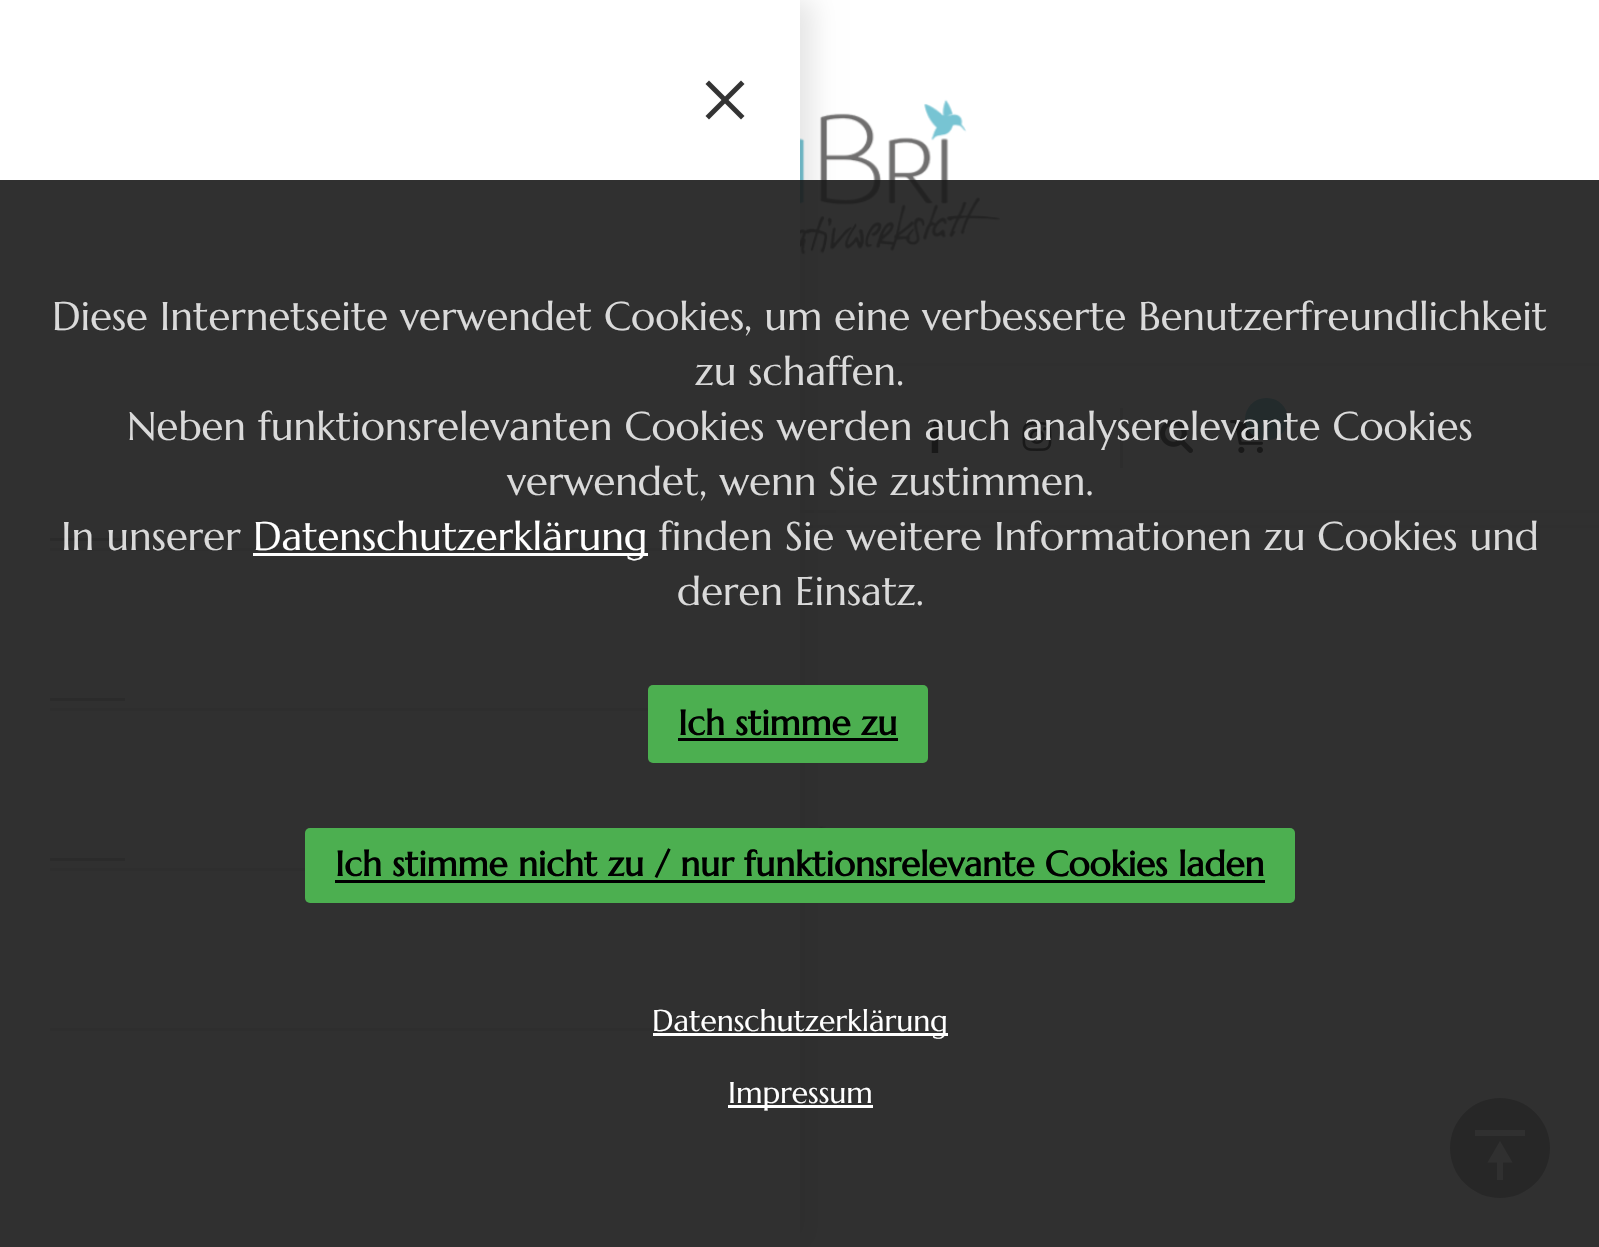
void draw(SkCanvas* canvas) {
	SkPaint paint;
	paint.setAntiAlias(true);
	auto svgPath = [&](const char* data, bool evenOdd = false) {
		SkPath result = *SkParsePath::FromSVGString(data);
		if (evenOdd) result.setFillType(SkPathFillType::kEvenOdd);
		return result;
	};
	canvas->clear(0xffffffff);
	paint.setColor(0xffededed);
	canvas->drawRect(SkRect::MakeXYWH(800, 363, 799, 3), paint);
	canvas->drawRect(SkRect::MakeXYWH(800, 510, 799, 3), paint);
	canvas->drawImageRect(SkImages::DeferredFromEncodedData(SkData::MakeFromFileName("img5.png")), SkRect::MakeXYWH(800, 99, 200, 156), SkSamplingOptions());
	paint.setColor(0xffeeeeee);
	canvas->drawRect(SkRect::MakeXYWH(800, 525, 799, 3), paint);
	canvas->drawImageRect(SkImages::DeferredFromEncodedData(SkData::MakeFromFileName("img6.png")), SkRect::MakeXYWH(817, 826, 9, 2), SkSamplingOptions());
	paint.setColor(0x1a000000);
	paint.setMaskFilter(SkMaskFilter::MakeBlur(kNormal_SkBlurStyle, 12.5));
	canvas->drawRect(SkRect::MakeXYWH(13, 0, 800, 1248), paint);
	paint.setMaskFilter(nullptr);
	paint.setColor(0xffffffff);
	canvas->drawRect(SkRect::MakeXYWH(0, 0, 800, 1247), paint);
	paint.setColor(0xff333333);
	canvas->drawPath(svgPath("M709 80.5L744.5 116L741 119.5L705.5 84Z"), paint);
	canvas->drawPath(svgPath("M705.5 116L741 80.5L744.5 84L709 119.5Z"), paint);
	paint.setColor(0xffcccccc);
	canvas->drawRect(SkRect::MakeXYWH(50, 538, 75, 3), paint);
	paint.setColor(0xffe6e6e6);
	canvas->drawRect(SkRect::MakeXYWH(50, 548, 700, 3), paint);
	paint.setColor(0xffcccccc);
	canvas->drawRect(SkRect::MakeXYWH(50, 698, 75, 3), paint);
	paint.setColor(0xffe6e6e6);
	canvas->drawRect(SkRect::MakeXYWH(50, 708, 598, 3), paint);
	paint.setColor(0xffcccccc);
	canvas->drawRect(SkRect::MakeXYWH(50, 858, 75, 3), paint);
	paint.setColor(0xffe6e6e6);
	canvas->drawRect(SkRect::MakeXYWH(50, 868, 255, 3), paint);
	canvas->drawRect(SkRect::MakeXYWH(50, 1028, 700, 3), paint);
	canvas->drawImageRect(SkImages::DeferredFromEncodedData(SkData::MakeFromFileName("img1.png")), SkRect::MakeXYWH(926, 420, 19, 33), SkSamplingOptions());
	canvas->drawImageRect(SkImages::DeferredFromEncodedData(SkData::MakeFromFileName("img2.png")), SkRect::MakeXYWH(1022, 422, 30, 29), SkSamplingOptions());
	paint.setColor(0xffd9d9d9);
	canvas->drawRect(SkRect::MakeXYWH(1120, 408, 3, 60), paint);
	canvas->drawImageRect(SkImages::DeferredFromEncodedData(SkData::MakeFromFileName("img3.png")), SkRect::MakeXYWH(1160, 420, 33, 33), SkSamplingOptions());
	canvas->drawImageRect(SkImages::DeferredFromEncodedData(SkData::MakeFromFileName("img4.png")), SkRect::MakeXYWH(1230, 420, 33, 33), SkSamplingOptions());
	paint.setColor(0xff77c4d3);
	canvas->drawRoundRect(SkRect::MakeXYWH(1245, 398, 43, 42), 21, 21, paint);
	paint.setColor(0xffa1a1a1);
	canvas->drawCircle(1500, 1148, 50, paint);
	paint.setColor(0xffffffff);
	canvas->drawRect(SkRect::MakeXYWH(1475, 1130, 50, 6), paint);
	canvas->drawPath(svgPath("M1512.5 1162.5L1500 1141L1487.5 1162.5H1497V1180H1503V1162.5Z"), paint);
	paint.setColor(0xe6191919);
	canvas->drawRect(SkRect::MakeXYWH(0, 180, 1599, 1067), paint);
	SkFont f1(fontMgr->matchFamilyStyle("Marcellus", SkFontStyle::Normal()), 40);
	f1.setSubpixel(true);
	paint.setColor(0xffdadada);
	canvas->drawString("Diese Internetseite verwendet Cookies, um eine verbesserte Benutzerfreundlichkeit", 52, 330, f1, paint);
	canvas->drawString("zu schaffen.", 695, 385, f1, paint);
	canvas->drawString("Neben funktionsrelevanten Cookies werden auch analyserelevante Cookies", 127, 440, f1, paint);
	canvas->drawString("verwendet, wenn Sie zustimmen.", 507, 495, f1, paint);
	canvas->drawString("In unserer", 61, 550, f1, paint);
	paint.setColor(0xffffffff);
	canvas->drawRect(SkRect::MakeXYWH(253, 553, 395, 3), paint);
	canvas->drawString("Datenschutzerklärung", 253, 550, f1, paint);
	paint.setColor(0xffdadada);
	canvas->drawString("finden Sie weitere Informationen zu Cookies und", 659, 550, f1, paint);
	canvas->drawString("deren Einsatz.", 677, 605, f1, paint);
	paint.setColor(0xff4caf50);
	canvas->drawRoundRect(SkRect::MakeXYWH(648, 685, 280, 78), 5, 5, paint);
	SkFont f2(fontMgr->matchFamilyStyle("Marcellus", SkFontStyle::Bold()), 35);
	f2.setSubpixel(true);
	paint.setColor(0xff000000);
	canvas->drawString("Ich stimme zu", 678, 735, f2, paint);
	canvas->drawRect(SkRect::MakeXYWH(678, 738, 220, 3), paint);
	paint.setColor(0xff4caf50);
	canvas->drawRoundRect(SkRect::MakeXYWH(305, 828, 990, 75), 5, 5, paint);
	paint.setColor(0xff000000);
	canvas->drawString("Ich stimme nicht zu / nur funktionsrelevante Cookies laden", 335, 876, f2, paint);
	canvas->drawRect(SkRect::MakeXYWH(335, 880, 930, 3), paint);
	paint.setColor(0xffffffff);
	canvas->drawRect(SkRect::MakeXYWH(653, 1033, 295, 3), paint);
	SkFont f3(fontMgr->matchFamilyStyle("Marcellus", SkFontStyle::Normal()), 30);
	f3.setSubpixel(true);
	canvas->drawString("Datenschutzerklärung", 652, 1031, f3, paint);
	canvas->drawRect(SkRect::MakeXYWH(728, 1105, 145, 3), paint);
	canvas->drawString("Impressum", 728, 1103, f3, paint);
}
